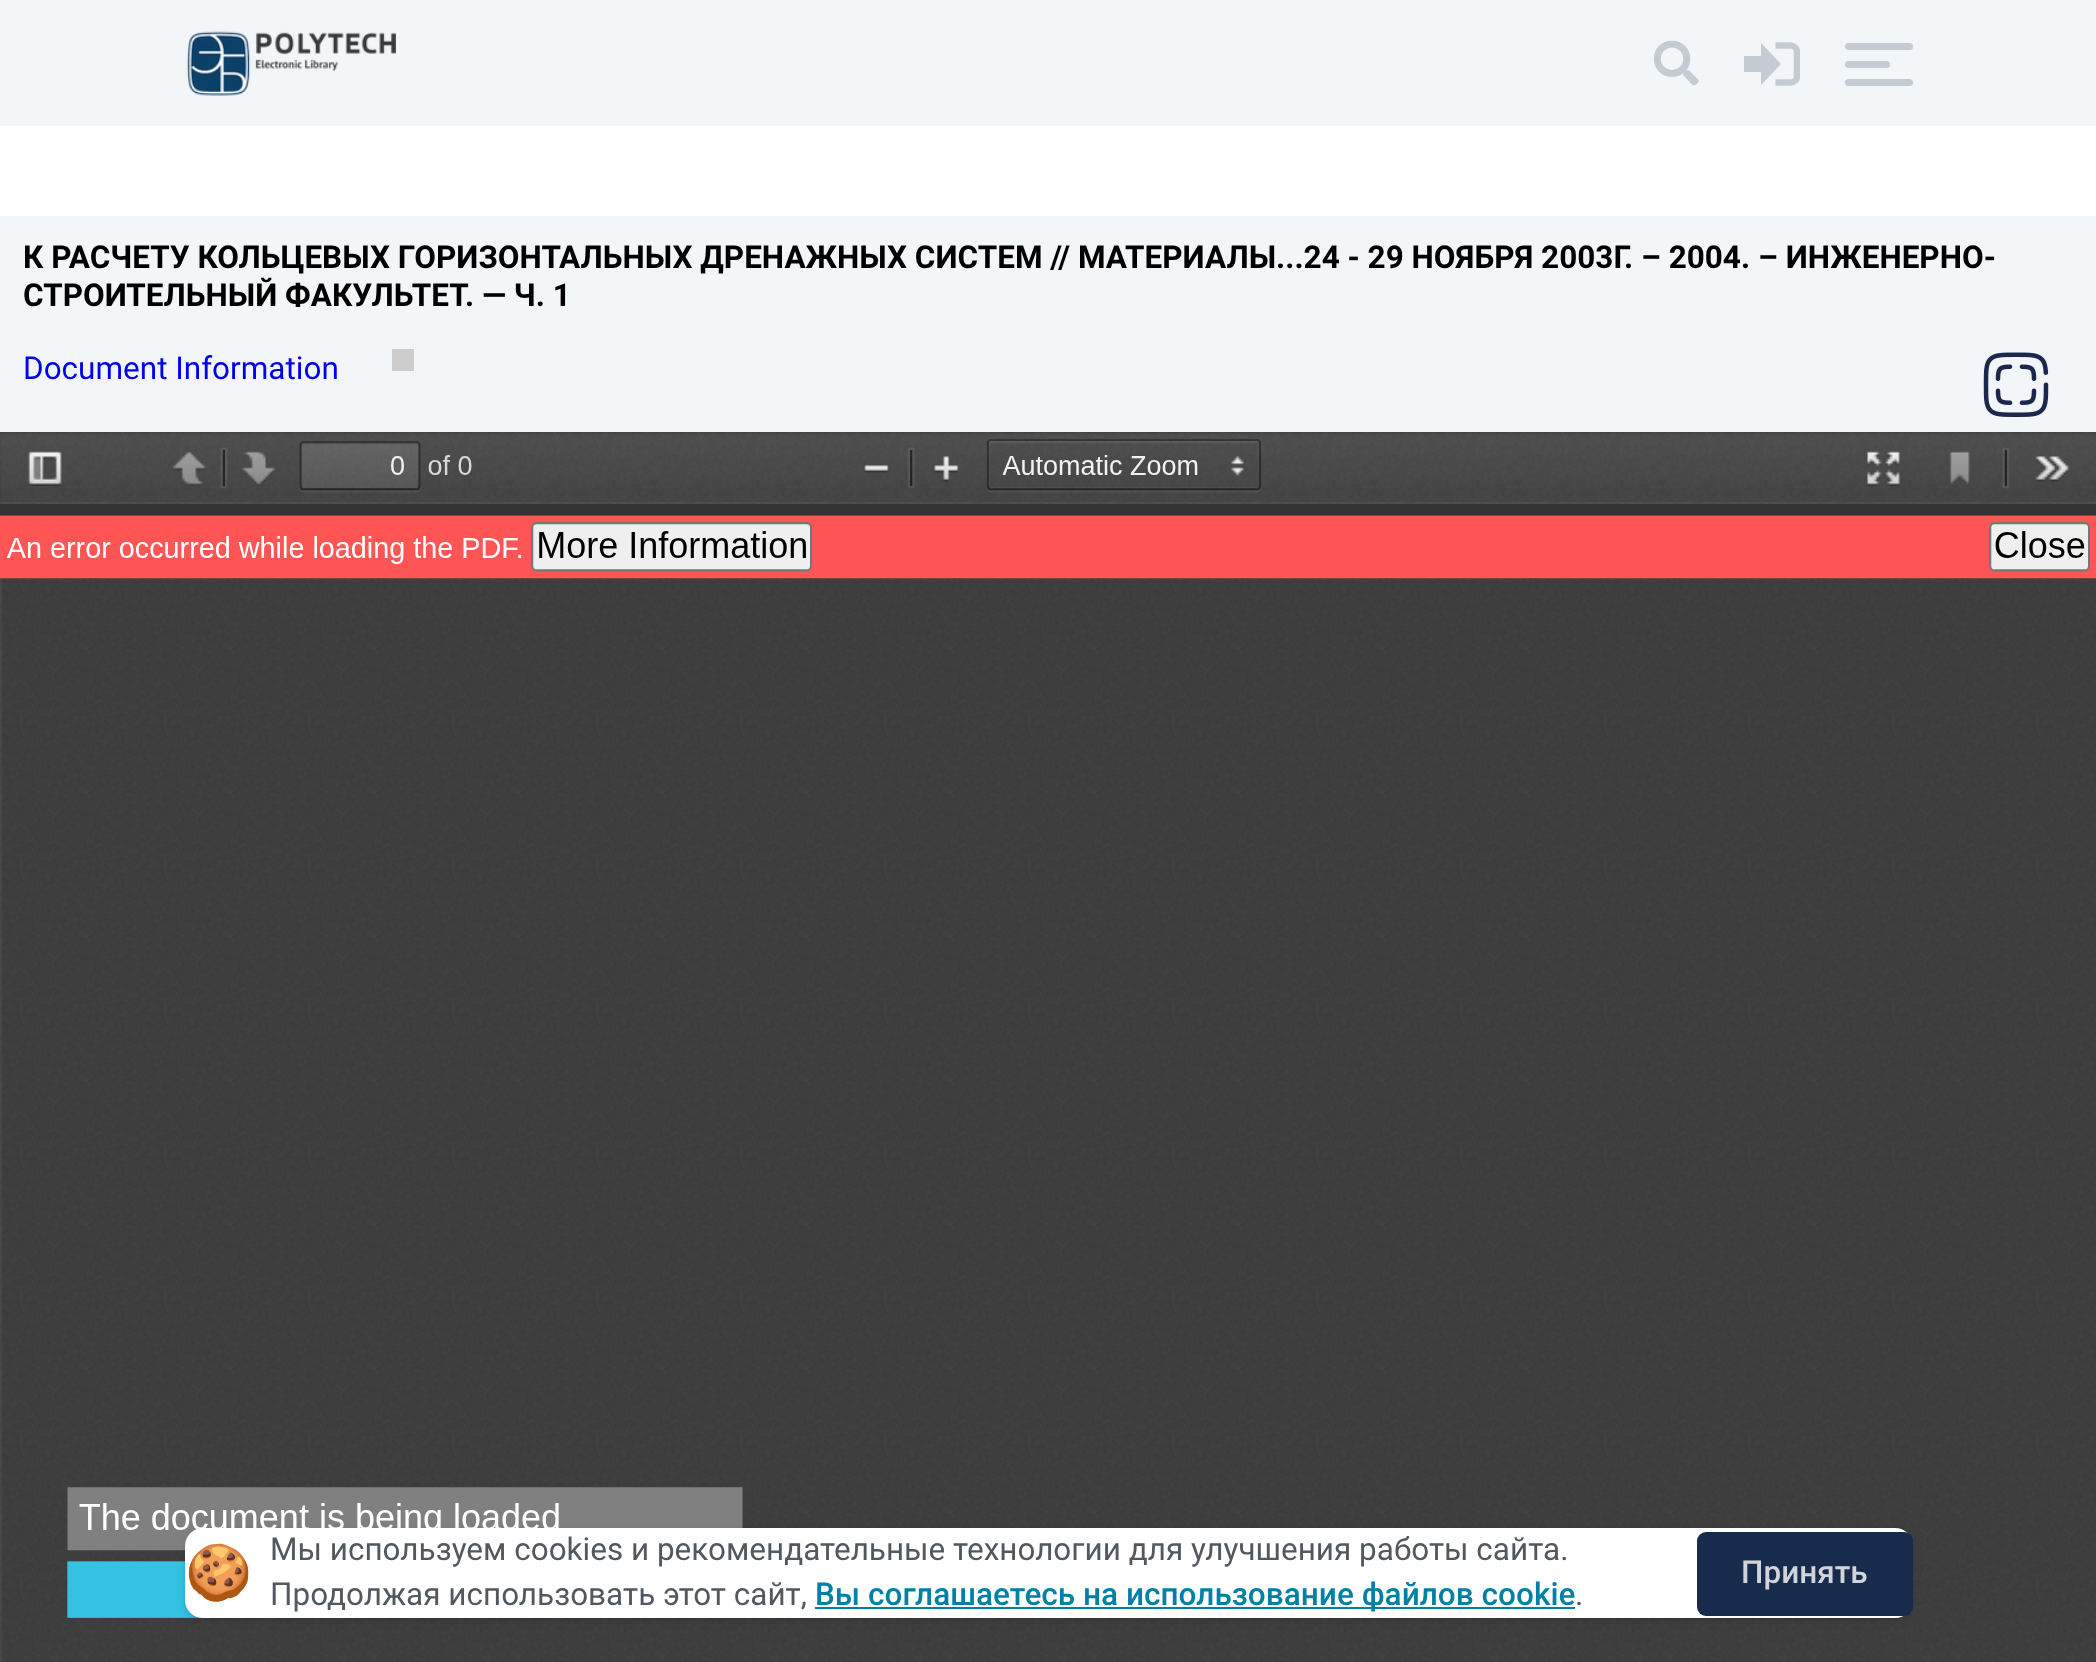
<!DOCTYPE html>
<meta charset="utf-8">
<style>body { margin: 0 } canvas { display: block }</style>
<canvas id="canvas" width="2096" height="1662"></canvas>
<script type="module">
  const canvas = document.getElementById("canvas");
  const ctx = canvas.getContext("2d");
  ctx.miterLimit = 4;
  ctx.fontKerning = "normal";
  async function loadImage(src) {
    const img = new Image();
    img.src = src;
    await img.decode();
    return img;
  }

  ctx.fillStyle = "#f3f6f8";
  ctx.fillRect(0, 0, 2096, 1662);
  ctx.drawImage(await loadImage("img1.png"), 186, 31, 210, 65);
  ctx.drawImage(await loadImage("img2.png"), 1654, 40, 45, 46);
  ctx.save();
  ctx.beginPath();
  ctx.rect(1744, 38, 56, 52);
  ctx.clip();
  ctx.beginPath();
  ctx.moveTo(1775.5, 45.5);
  ctx.lineTo(1790.5, 45.5);
  ctx.bezierCurveTo(1794, 45.5, 1797, 48.5, 1797, 52);
  ctx.lineTo(1797, 76);
  ctx.bezierCurveTo(1797, 80, 1794, 82.5, 1790.5, 82.5);
  ctx.lineTo(1775.5, 82.5);
  ctx.strokeStyle = "#c4cbd2";
  ctx.lineWidth = 6.5;
  ctx.stroke();
  ctx.restore();
  ctx.fillStyle = "#c4cbd2";
  ctx.beginPath();
  ctx.moveTo(1781, 64);
  ctx.lineTo(1761, 85);
  ctx.lineTo(1761, 43);
  ctx.closePath();
  ctx.fill();
  ctx.fillRect(1744, 56, 17, 16);
  ctx.beginPath();
  ctx.roundRect(1845, 43, 68, 7, 3.5);
  ctx.fill();
  ctx.beginPath();
  ctx.roundRect(1845, 61, 45, 7, 3.5);
  ctx.fill();
  ctx.beginPath();
  ctx.roundRect(1845, 79, 68, 7, 3.5);
  ctx.fill();
  ctx.fillStyle = "#ffffff";
  ctx.fillRect(0, 126, 2096, 90);
  ctx.font = "bold 31.5px Roboto";
  ctx.fillStyle = "#000000";
  ctx.fillText("К РАСЧЕТУ КОЛЬЦЕВЫХ ГОРИЗОНТАЛЬНЫХ ДРЕНАЖНЫХ СИСТЕМ // МАТЕРИАЛЫ...24 - 29 НОЯБРЯ 2003Г. – 2004. – ИНЖЕНЕРНО-", 23, 268);
  ctx.fillText("СТРОИТЕЛЬНЫЙ ФАКУЛЬТЕТ. — Ч. 1", 23, 306);
  ctx.font = "31.5px Roboto";
  ctx.fillStyle = "#0000ee";
  ctx.fillText("Document Information", 23, 379);
  ctx.fillStyle = "#cccccc";
  ctx.fillRect(392, 349, 22, 22);
  ctx.drawImage(await loadImage("img3.png"), 1983, 352, 66, 65);
  ctx.drawImage(await loadImage("img4.png"), 0, 432, 2096, 1230);
  ctx.fillStyle = "rgba(0, 0, 0, 0.07)";
  ctx.filter = "blur(2px)";
  ctx.beginPath();
  ctx.roundRect(185, 1530, 1728, 90, 18);
  ctx.fill();
  ctx.filter = "none";
  ctx.fillStyle = "rgba(10, 37, 64, 0.09)";
  ctx.filter = "blur(5px)";
  ctx.beginPath();
  ctx.roundRect(185, 1532, 1728, 90, 18);
  ctx.fill();
  ctx.filter = "none";
  ctx.fillStyle = "#ffffff";
  ctx.beginPath();
  ctx.roundRect(185, 1528, 1728, 90, 18);
  ctx.fill();
  ctx.font = "54px Noto Color Emoji";
  ctx.fillStyle = "#52585f";
  ctx.fillText("🍪", 185, 1591);
  ctx.font = "31.5px Roboto";
  ctx.fillText("Мы используем cookies и рекомендательные технологии для улучшения работы сайта.", 270, 1560);
  ctx.fillText("Продолжая использовать этот сайт,", 270, 1605);
  ctx.fillStyle = "#0080a7";
  ctx.fillRect(815, 1607, 760, 2);
  ctx.font = "500 31.5px Roboto";
  ctx.fillText("Вы соглашаетесь на использование файлов cookie", 815, 1605);
  ctx.font = "31.5px Roboto";
  ctx.fillStyle = "#52585f";
  ctx.fillText(".", 1575, 1605);
  ctx.fillStyle = "#172b4d";
  ctx.beginPath();
  ctx.roundRect(1697, 1532, 216, 84, 9);
  ctx.fill();
  ctx.font = "500 31.5px Roboto";
  ctx.fillStyle = "#d1d5db";
  ctx.fillText("Принять", 1741, 1583);
</script>
